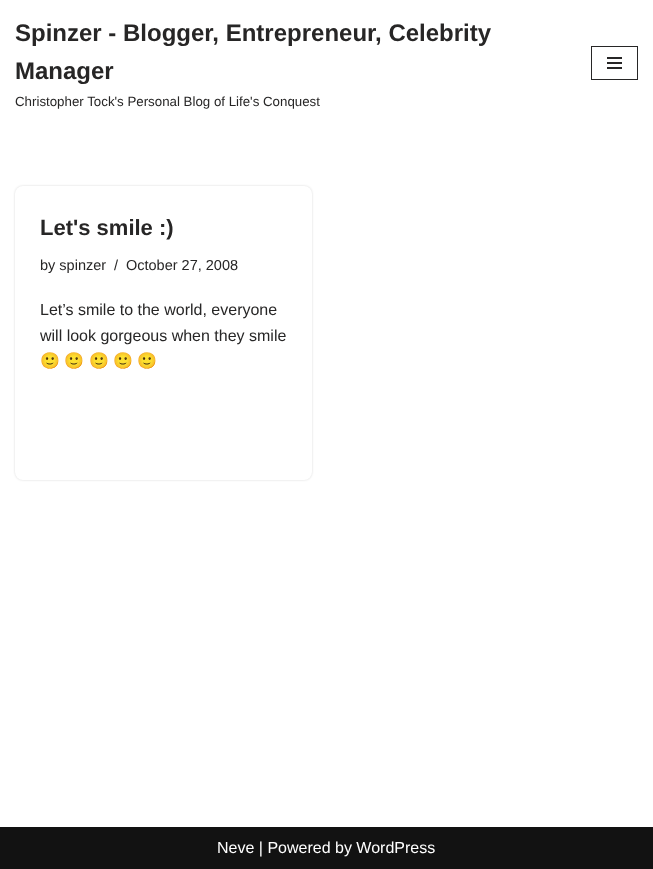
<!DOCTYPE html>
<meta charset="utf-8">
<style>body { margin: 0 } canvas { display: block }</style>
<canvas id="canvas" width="653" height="869"></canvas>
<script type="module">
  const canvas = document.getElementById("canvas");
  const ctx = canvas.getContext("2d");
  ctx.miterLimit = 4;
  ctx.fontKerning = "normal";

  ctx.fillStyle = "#ffffff";
  ctx.fillRect(0, 0, 653, 869);
  ctx.font = "bold 24px Liberation Sans";
  ctx.fillStyle = "#272626";
  ctx.fillText("Spinzer - Blogger, Entrepreneur, Celebrity", 15, 41);
  ctx.fillText("Manager", 15, 79);
  ctx.font = "13.3px Liberation Sans";
  ctx.fillText("Christopher Tock's Personal Blog of Life's Conquest", 15, 106);
  ctx.strokeStyle = "#272626";
  ctx.strokeRect(591.5, 46.5, 46, 33);
  ctx.fillRect(607, 57, 15, 2);
  ctx.fillRect(607, 62, 15, 2);
  ctx.fillRect(607, 67, 15, 2);
  ctx.fillStyle = "rgba(0, 0, 0, 0.15)";
  ctx.filter = "blur(1px)";
  ctx.beginPath();
  ctx.roundRect(15, 186, 297, 294, 8);
  ctx.fill();
  ctx.filter = "none";
  ctx.fillStyle = "#ffffff";
  ctx.beginPath();
  ctx.roundRect(15, 186, 297, 294, 8);
  ctx.fill();
  ctx.font = "bold 22px Liberation Sans";
  ctx.fillStyle = "#272626";
  ctx.fillText("Let's smile :)", 40, 235);
  ctx.font = "14.5px Liberation Sans";
  ctx.fillText("by spinzer", 40, 270);
  ctx.fillText("/", 114, 270);
  ctx.fillText("October 27, 2008", 126, 270);
  ctx.font = "16px Liberation Sans";
  ctx.fillText("Let’s smile to the world, everyone", 40, 315);
  ctx.fillText("will look gorgeous when they smile", 40, 341);
  ctx.font = "16px Noto Color Emoji";
  ctx.fillText("🙂", 40, 366);
  ctx.fillText("🙂", 64, 366);
  ctx.fillText("🙂", 89, 366);
  ctx.fillText("🙂", 113, 366);
  ctx.fillText("🙂", 137, 366);
  ctx.fillStyle = "#121212";
  ctx.fillRect(0, 827, 653, 42);
  ctx.font = "16px Liberation Sans";
  ctx.fillStyle = "#ffffff";
  ctx.fillText("Neve | Powered by WordPress", 217, 853);
</script>
